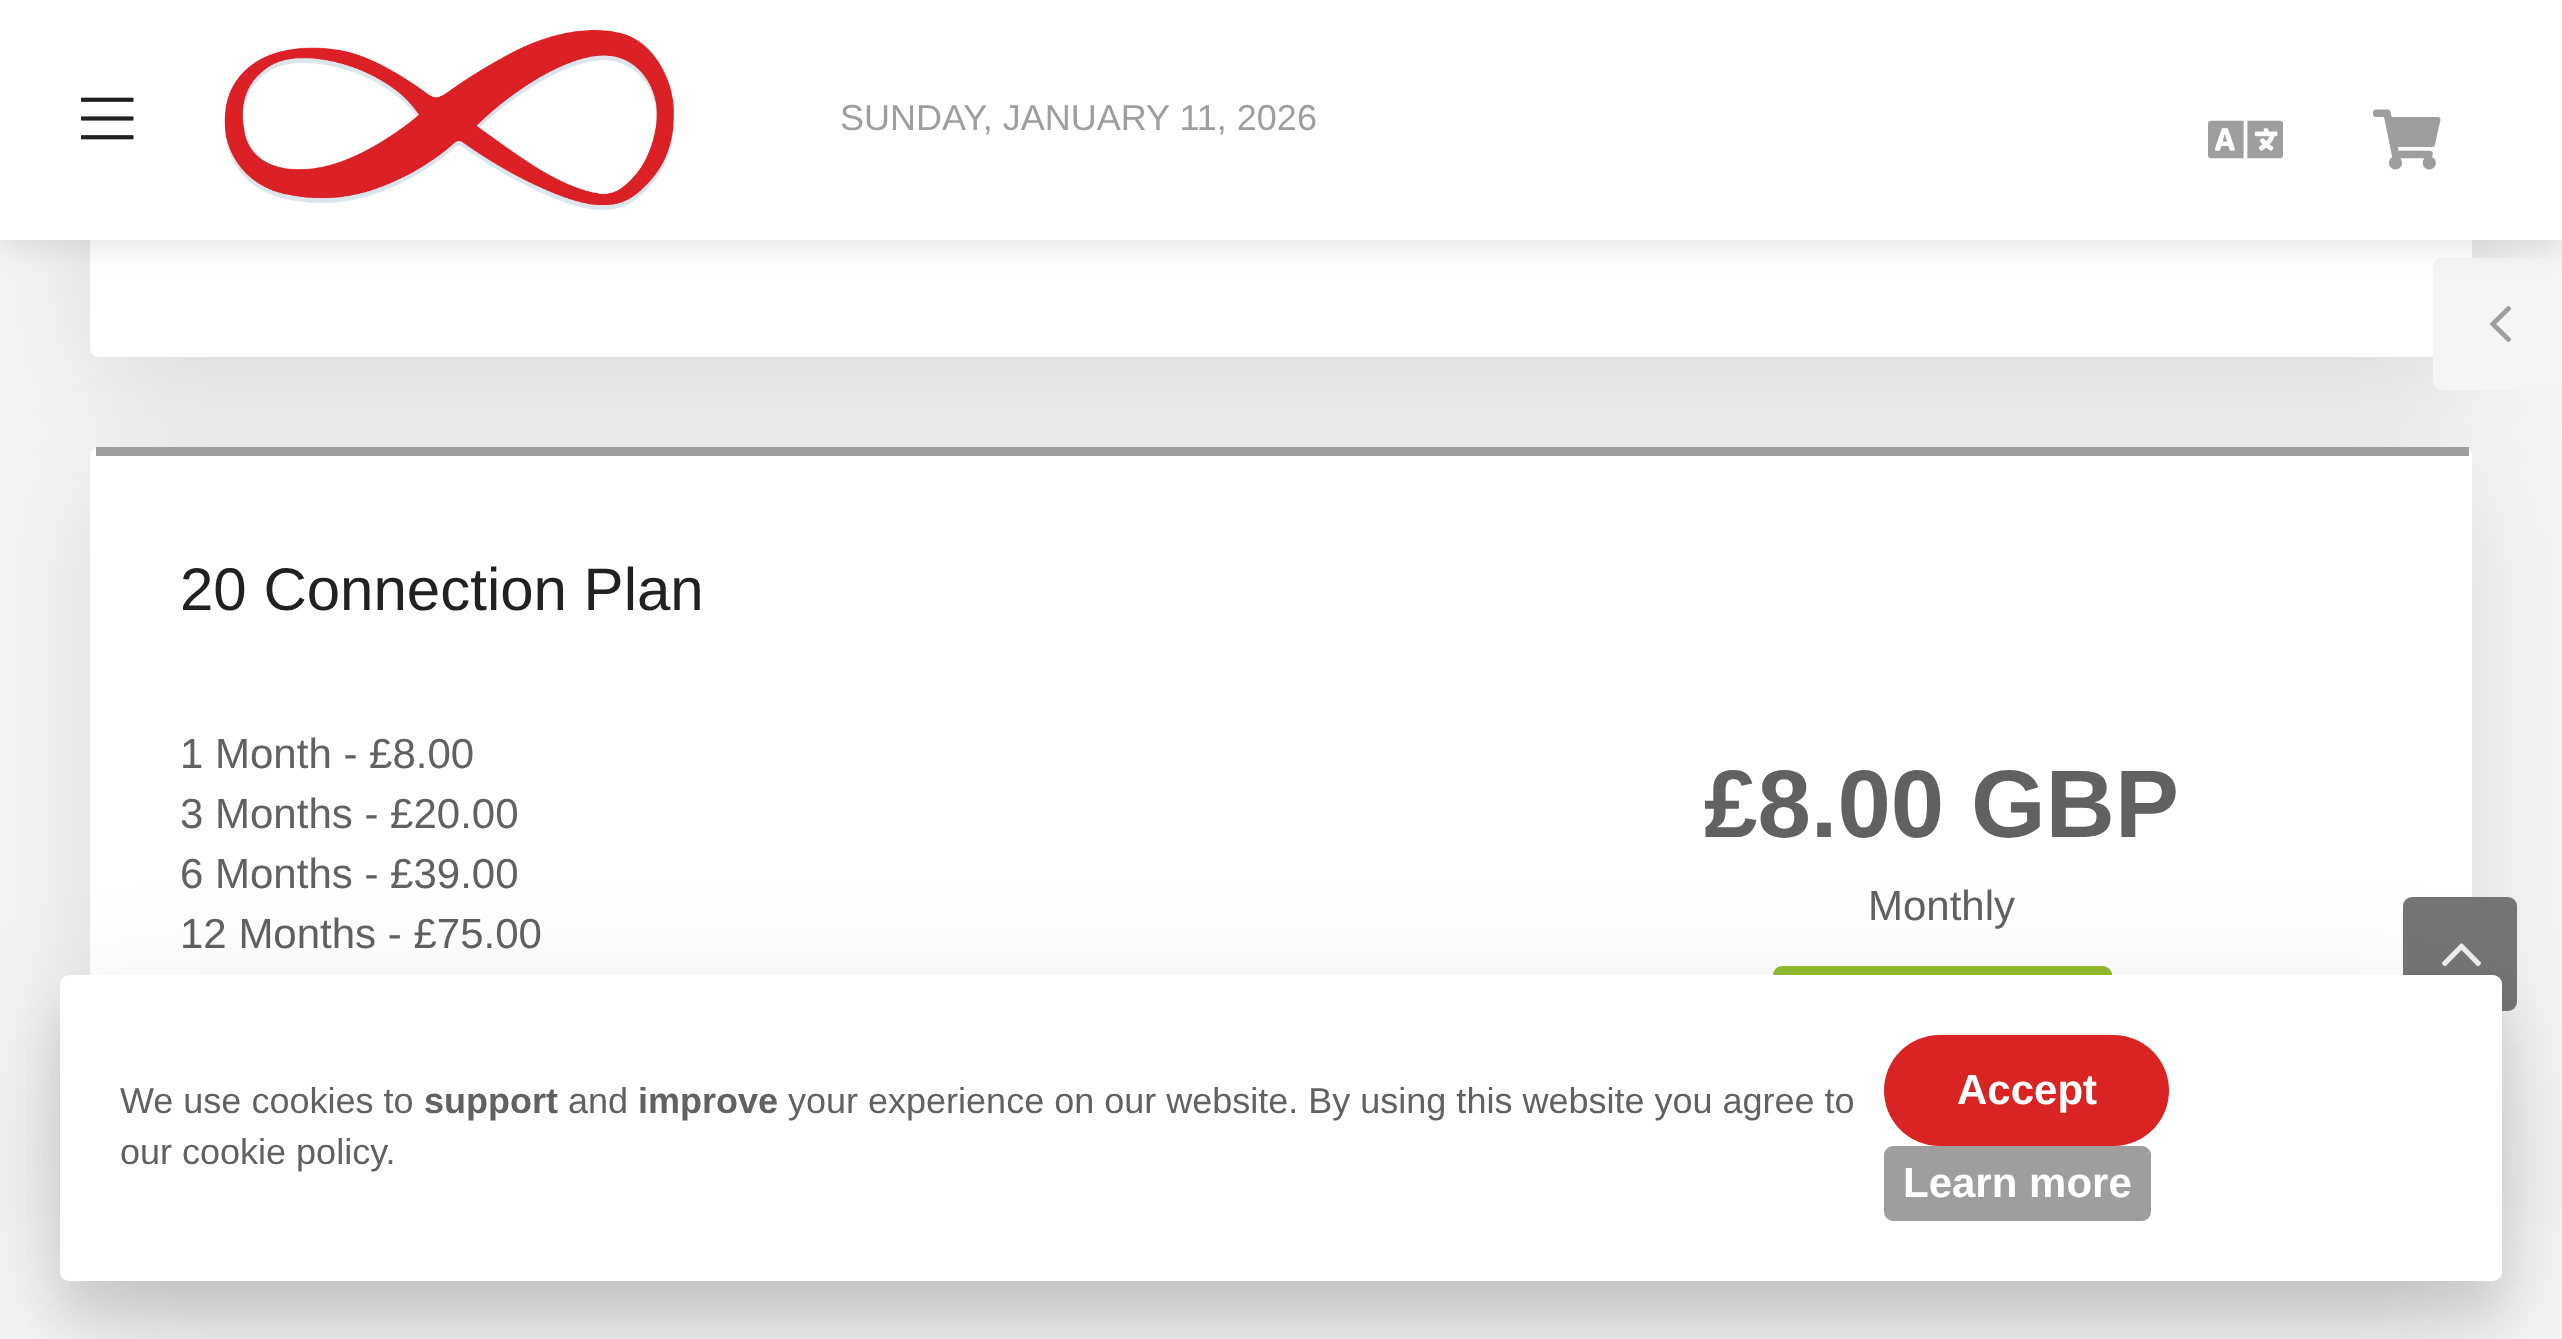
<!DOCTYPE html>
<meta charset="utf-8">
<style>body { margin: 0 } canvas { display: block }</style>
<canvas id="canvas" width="2562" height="1339"></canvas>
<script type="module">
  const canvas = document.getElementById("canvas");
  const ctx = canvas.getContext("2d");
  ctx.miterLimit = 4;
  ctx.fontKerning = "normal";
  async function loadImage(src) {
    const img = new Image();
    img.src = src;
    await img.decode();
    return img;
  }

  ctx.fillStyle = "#f5f5f5";
  ctx.fillRect(0, 0, 2562, 1339);
  ctx.fillStyle = "rgba(0, 0, 0, 0.1)";
  ctx.filter = "blur(60px)";
  ctx.beginPath();
  ctx.roundRect(90, -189, 2382, 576, 9);
  ctx.fill();
  ctx.filter = "none";
  ctx.fillStyle = "#ffffff";
  ctx.beginPath();
  ctx.roundRect(90, -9, 2382, 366, 9);
  ctx.fill();
  ctx.fillStyle = "rgba(0, 0, 0, 0.1)";
  ctx.filter = "blur(60px)";
  ctx.beginPath();
  ctx.roundRect(90, 477, 2382, 768, 9);
  ctx.fill();
  ctx.filter = "none";
  ctx.fillStyle = "#f5f5f5";
  ctx.beginPath();
  ctx.moveTo(2442, 258);
  ctx.lineTo(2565, 258);
  ctx.lineTo(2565, 390);
  ctx.lineTo(2442, 390);
  ctx.bezierCurveTo(2437, 390, 2433, 386, 2433, 381);
  ctx.lineTo(2433, 267);
  ctx.bezierCurveTo(2433, 262, 2437, 258, 2442, 258);
  ctx.closePath();
  ctx.fill();
  ctx.fillStyle = "rgba(0, 0, 0, 0.1)";
  ctx.filter = "blur(15px)";
  ctx.beginPath();
  ctx.rect(0, 6, 2562, 240);
  ctx.fill();
  ctx.filter = "none";
  ctx.fillStyle = "#ffffff";
  ctx.fillRect(0, 0, 2562, 240);
  ctx.drawImage(await loadImage("img1.png"), 81, 97, 53, 43);
  ctx.drawImage(await loadImage("img2.png"), 224, 30, 450, 180);
  ctx.font = "36px Liberation Sans";
  ctx.fillStyle = "#9e9e9e";
  ctx.fillText("SUNDAY, JANUARY 11, 2026", 840, 130);
  ctx.drawImage(await loadImage("img3.png"), 2208, 120, 75, 39);
  ctx.drawImage(await loadImage("img4.png"), 2373, 109, 68, 61);
  ctx.drawImage(await loadImage("img5.png"), 2490, 306, 22, 36);
  ctx.fillStyle = "#ffffff";
  ctx.beginPath();
  ctx.roundRect(90, 447, 2382, 768, 9);
  ctx.fill();
  ctx.fillStyle = "#9e9e9e";
  ctx.fillRect(96, 447, 2373, 9);
  ctx.font = "60px Liberation Sans";
  ctx.fillStyle = "#212121";
  ctx.fillText("20 Connection Plan", 180, 610);
  ctx.font = "42px Liberation Sans";
  ctx.fillStyle = "#616161";
  ctx.fillText("1 Month - £8.00", 180, 768);
  ctx.fillText("3 Months - £20.00", 180, 828);
  ctx.fillText("6 Months - £39.00", 180, 888);
  ctx.fillText("12 Months - £75.00", 180, 948);
  ctx.font = "bold 96px Liberation Sans";
  ctx.fillText("£8.00 GBP", 1704, 837);
  ctx.font = "42px Liberation Sans";
  ctx.fillText("Monthly", 1868, 920);
  ctx.fillStyle = "#94bd31";
  ctx.beginPath();
  ctx.roundRect(1774.5, 967.5, 336, 96, 7.5);
  ctx.fill();
  ctx.strokeStyle = "#94bd31";
  ctx.lineWidth = 3;
  ctx.stroke();
  ctx.fillStyle = "#757575";
  ctx.beginPath();
  ctx.roundRect(2403, 897, 114, 114, 9);
  ctx.fill();
  ctx.drawImage(await loadImage("img6.png"), 2442, 943, 39, 24);
  ctx.fillStyle = "rgba(0, 0, 0, 0.1)";
  ctx.filter = "blur(22.5px)";
  ctx.beginPath();
  ctx.roundRect(60, 1011, 2442, 306, 9);
  ctx.fill();
  ctx.filter = "none";
  ctx.filter = "blur(75px)";
  ctx.beginPath();
  ctx.roundRect(60, 1026, 2442, 306, 9);
  ctx.fill();
  ctx.filter = "none";
  ctx.fillStyle = "#ffffff";
  ctx.beginPath();
  ctx.roundRect(60, 975, 2442, 306, 9);
  ctx.fill();
  ctx.font = "36px Liberation Sans";
  ctx.fillStyle = "#616161";
  ctx.fillText("We use cookies to", 120, 1113);
  ctx.font = "bold 36px Liberation Sans";
  ctx.fillText("support", 424, 1113);
  ctx.font = "36px Liberation Sans";
  ctx.fillText("and", 568, 1113);
  ctx.font = "bold 36px Liberation Sans";
  ctx.fillText("improve", 638, 1113);
  ctx.font = "36px Liberation Sans";
  ctx.fillText("your experience on our website. By using this website you agree to", 788, 1113);
  ctx.fillText("our cookie policy.", 120, 1164);
  ctx.fillStyle = "#da2323";
  ctx.beginPath();
  ctx.roundRect(1884, 1035, 285, 111, 55.5);
  ctx.fill();
  ctx.font = "bold 42px Liberation Sans";
  ctx.fillStyle = "#ffffff";
  ctx.fillText("Accept", 1957, 1104);
  ctx.fillStyle = "#9e9e9e";
  ctx.beginPath();
  ctx.roundRect(1885.5, 1147.5, 264, 72, 7.5);
  ctx.fill();
  ctx.strokeStyle = "#9e9e9e";
  ctx.stroke();
  ctx.fillStyle = "#ffffff";
  ctx.fillText("Learn more", 1903, 1197);
</script>
